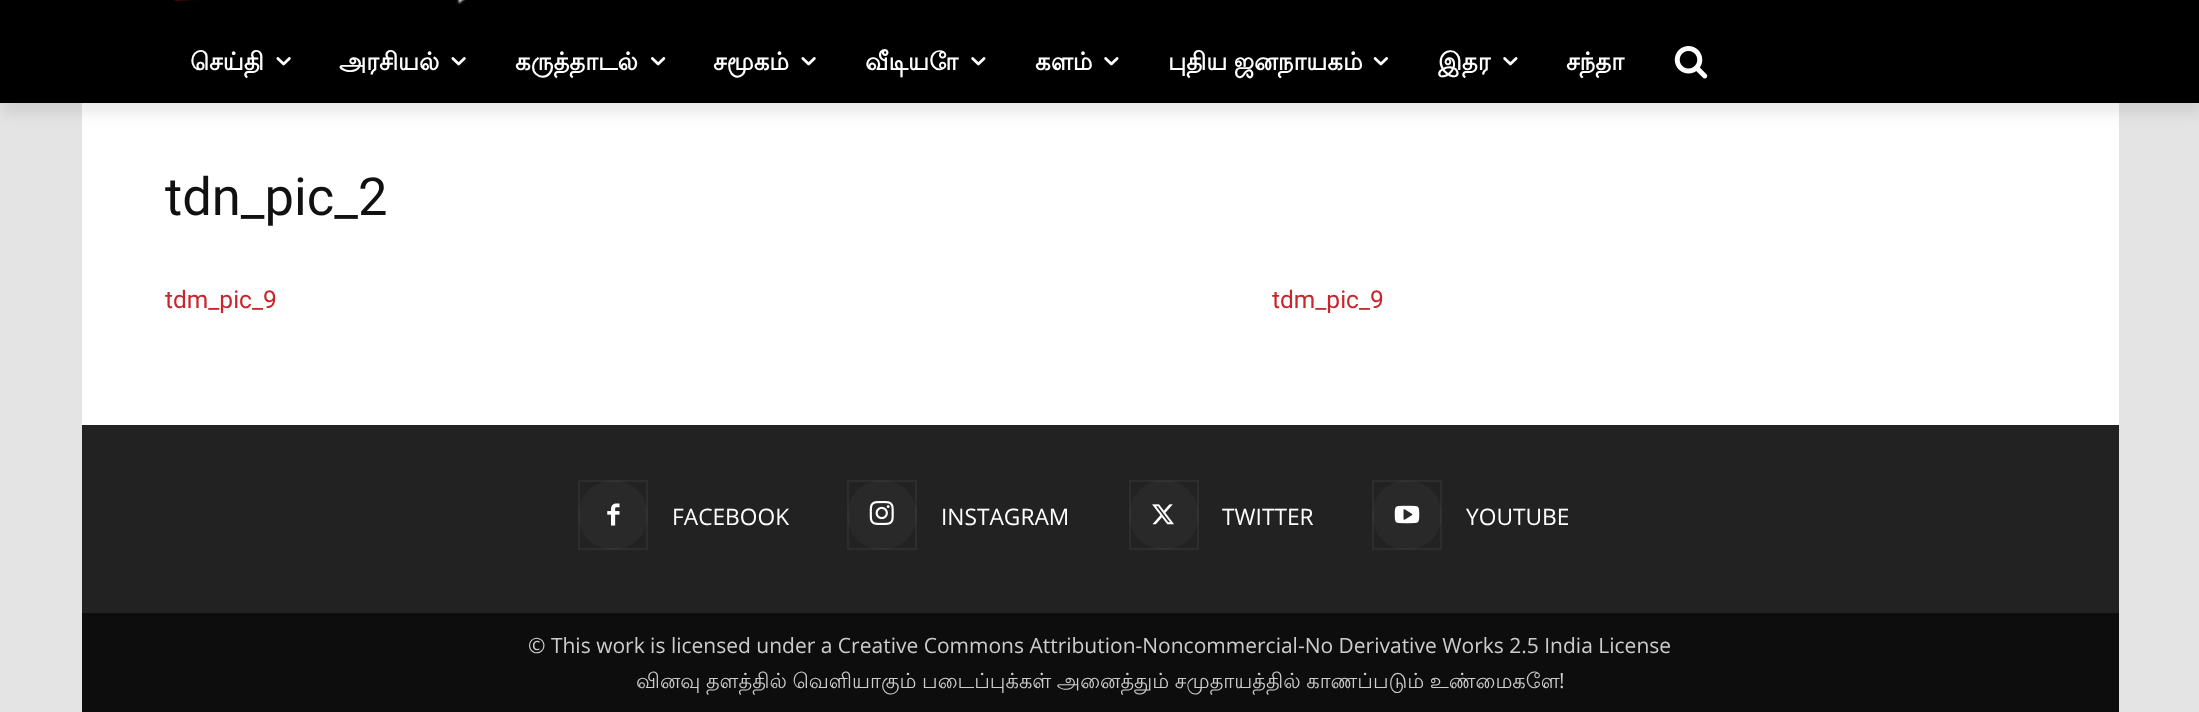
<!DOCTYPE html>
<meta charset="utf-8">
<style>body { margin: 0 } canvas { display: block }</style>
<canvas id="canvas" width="2199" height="712"></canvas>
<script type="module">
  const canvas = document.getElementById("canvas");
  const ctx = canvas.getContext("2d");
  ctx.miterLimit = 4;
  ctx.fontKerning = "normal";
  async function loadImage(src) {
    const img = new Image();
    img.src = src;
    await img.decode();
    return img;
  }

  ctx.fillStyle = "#e4e4e4";
  ctx.fillRect(0, 0, 2199, 712);
  ctx.fillStyle = "#000000";
  ctx.fillRect(0, 0, 2199, 103);
  ctx.drawImage(await loadImage("img1.png"), 173, 0, 293, 4);
  ctx.fillStyle = "#ffffff";
  ctx.fillRect(82, 103, 2037, 322);
  ctx.save();
  ctx.beginPath();
  ctx.moveTo(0, 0);
  ctx.lineTo(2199, 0);
  ctx.lineTo(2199, 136);
  ctx.lineTo(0, 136);
  ctx.closePath();
  ctx.moveTo(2, -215);
  ctx.lineTo(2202, -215);
  ctx.lineTo(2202, 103);
  ctx.lineTo(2, 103);
  ctx.closePath();
  ctx.clip("evenodd");
  ctx.fillStyle = "rgba(0, 0, 0, 0.08)";
  ctx.filter = "blur(7px)";
  ctx.beginPath();
  ctx.rect(2, -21, 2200, 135);
  ctx.fill();
  ctx.filter = "none";
  ctx.restore();
  ctx.font = "bold 24.5px Lohit Tamil";
  ctx.fillText("செய்தி", 190, 70);
  ctx.drawImage(await loadImage("img2.png"), 276, 57, 15, 9);
  ctx.fillText("அரசியல்", 339, 70);
  ctx.drawImage(await loadImage("img2.png"), 451, 57, 15, 9);
  ctx.fillText("கருத்தாடல்", 515, 70);
  ctx.drawImage(await loadImage("img3.png"), 651, 57, 15, 9);
  ctx.fillText("சமூகம்", 713, 70);
  ctx.drawImage(await loadImage("img2.png"), 801, 57, 15, 9);
  ctx.fillText("வீடியோ", 865, 70);
  ctx.drawImage(await loadImage("img4.png"), 971, 57, 15, 9);
  ctx.fillText("களம்", 1035, 70);
  ctx.drawImage(await loadImage("img4.png"), 1104, 57, 15, 9);
  ctx.wordSpacing = "-1px";
  ctx.fillText("புதிய ஜனநாயகம்", 1168, 70);
  ctx.drawImage(await loadImage("img5.png"), 1373, 57, 15, 9);
  ctx.wordSpacing = "0px";
  ctx.fillText("இதர", 1438, 70);
  ctx.drawImage(await loadImage("img4.png"), 1503, 57, 15, 9);
  ctx.fillText("சந்தா", 1566, 70);
  ctx.drawImage(await loadImage("img6.png"), 1674, 46, 34, 33);
  ctx.font = "52.5px Roboto";
  ctx.fillStyle = "#111111";
  ctx.fillText("tdn_pic_2", 165, 215);
  ctx.font = "24.5px Roboto";
  ctx.fillStyle = "#c9252c";
  ctx.fillText("tdm_pic_9", 165, 308);
  ctx.fillText("tdm_pic_9", 1272, 308);
  ctx.fillStyle = "#222222";
  ctx.fillRect(82, 425, 2037, 188);
  ctx.fillStyle = "#292929";
  ctx.beginPath();
  ctx.arc(613, 515, 35, 0, Math.PI * 2);
  ctx.fill();
  ctx.drawImage(await loadImage("img7.png"), 607, 503, 13, 23);
  ctx.strokeStyle = "rgba(255, 255, 255, 0.05)";
  ctx.lineWidth = 2;
  ctx.strokeRect(579, 481, 68, 68);
  ctx.font = "22.75px Open Sans";
  ctx.fillStyle = "#ffffff";
  ctx.fillText("FACEBOOK", 672, 525);
  ctx.fillStyle = "#292929";
  ctx.beginPath();
  ctx.arc(882, 515, 35, 0, Math.PI * 2);
  ctx.fill();
  ctx.drawImage(await loadImage("img8.png"), 869, 501, 25, 24);
  ctx.strokeRect(848, 481, 68, 68);
  ctx.fillStyle = "#ffffff";
  ctx.fillText("INSTAGRAM", 941, 525);
  ctx.fillStyle = "#292929";
  ctx.beginPath();
  ctx.arc(1164, 515, 35, 0, Math.PI * 2);
  ctx.fill();
  ctx.drawImage(await loadImage("img9.png"), 1152, 504, 22, 21);
  ctx.strokeRect(1130, 481, 68, 68);
  ctx.fillStyle = "#ffffff";
  ctx.fillText("TWITTER", 1222, 525);
  ctx.fillStyle = "#292929";
  ctx.beginPath();
  ctx.arc(1407, 515, 35, 0, Math.PI * 2);
  ctx.fill();
  ctx.drawImage(await loadImage("img10.png"), 1394, 505, 26, 19);
  ctx.strokeRect(1373, 481, 68, 68);
  ctx.fillStyle = "#ffffff";
  ctx.fillText("YOUTUBE", 1466, 525);
  ctx.fillStyle = "#0d0d0d";
  ctx.fillRect(82, 613, 2037, 99);
  ctx.font = "21px Open Sans";
  ctx.fillStyle = "#cccccc";
  ctx.fillText("© This work is licensed under a Creative Commons Attribution-Noncommercial-No Derivative Works 2.5 India License", 528, 653);
  ctx.wordSpacing = "-0.75px";
  ctx.font = "21px Lohit Tamil";
  ctx.fillText("வினவு தளத்தில் வெளியாகும் படைப்புக்கள் அனைத்தும் சமுதாயத்தில் காணப்படும் உண்மைகளே", 636, 688);
  ctx.wordSpacing = "0px";
  ctx.font = "21px Open Sans";
  ctx.fillText("!", 1559, 688);
</script>
